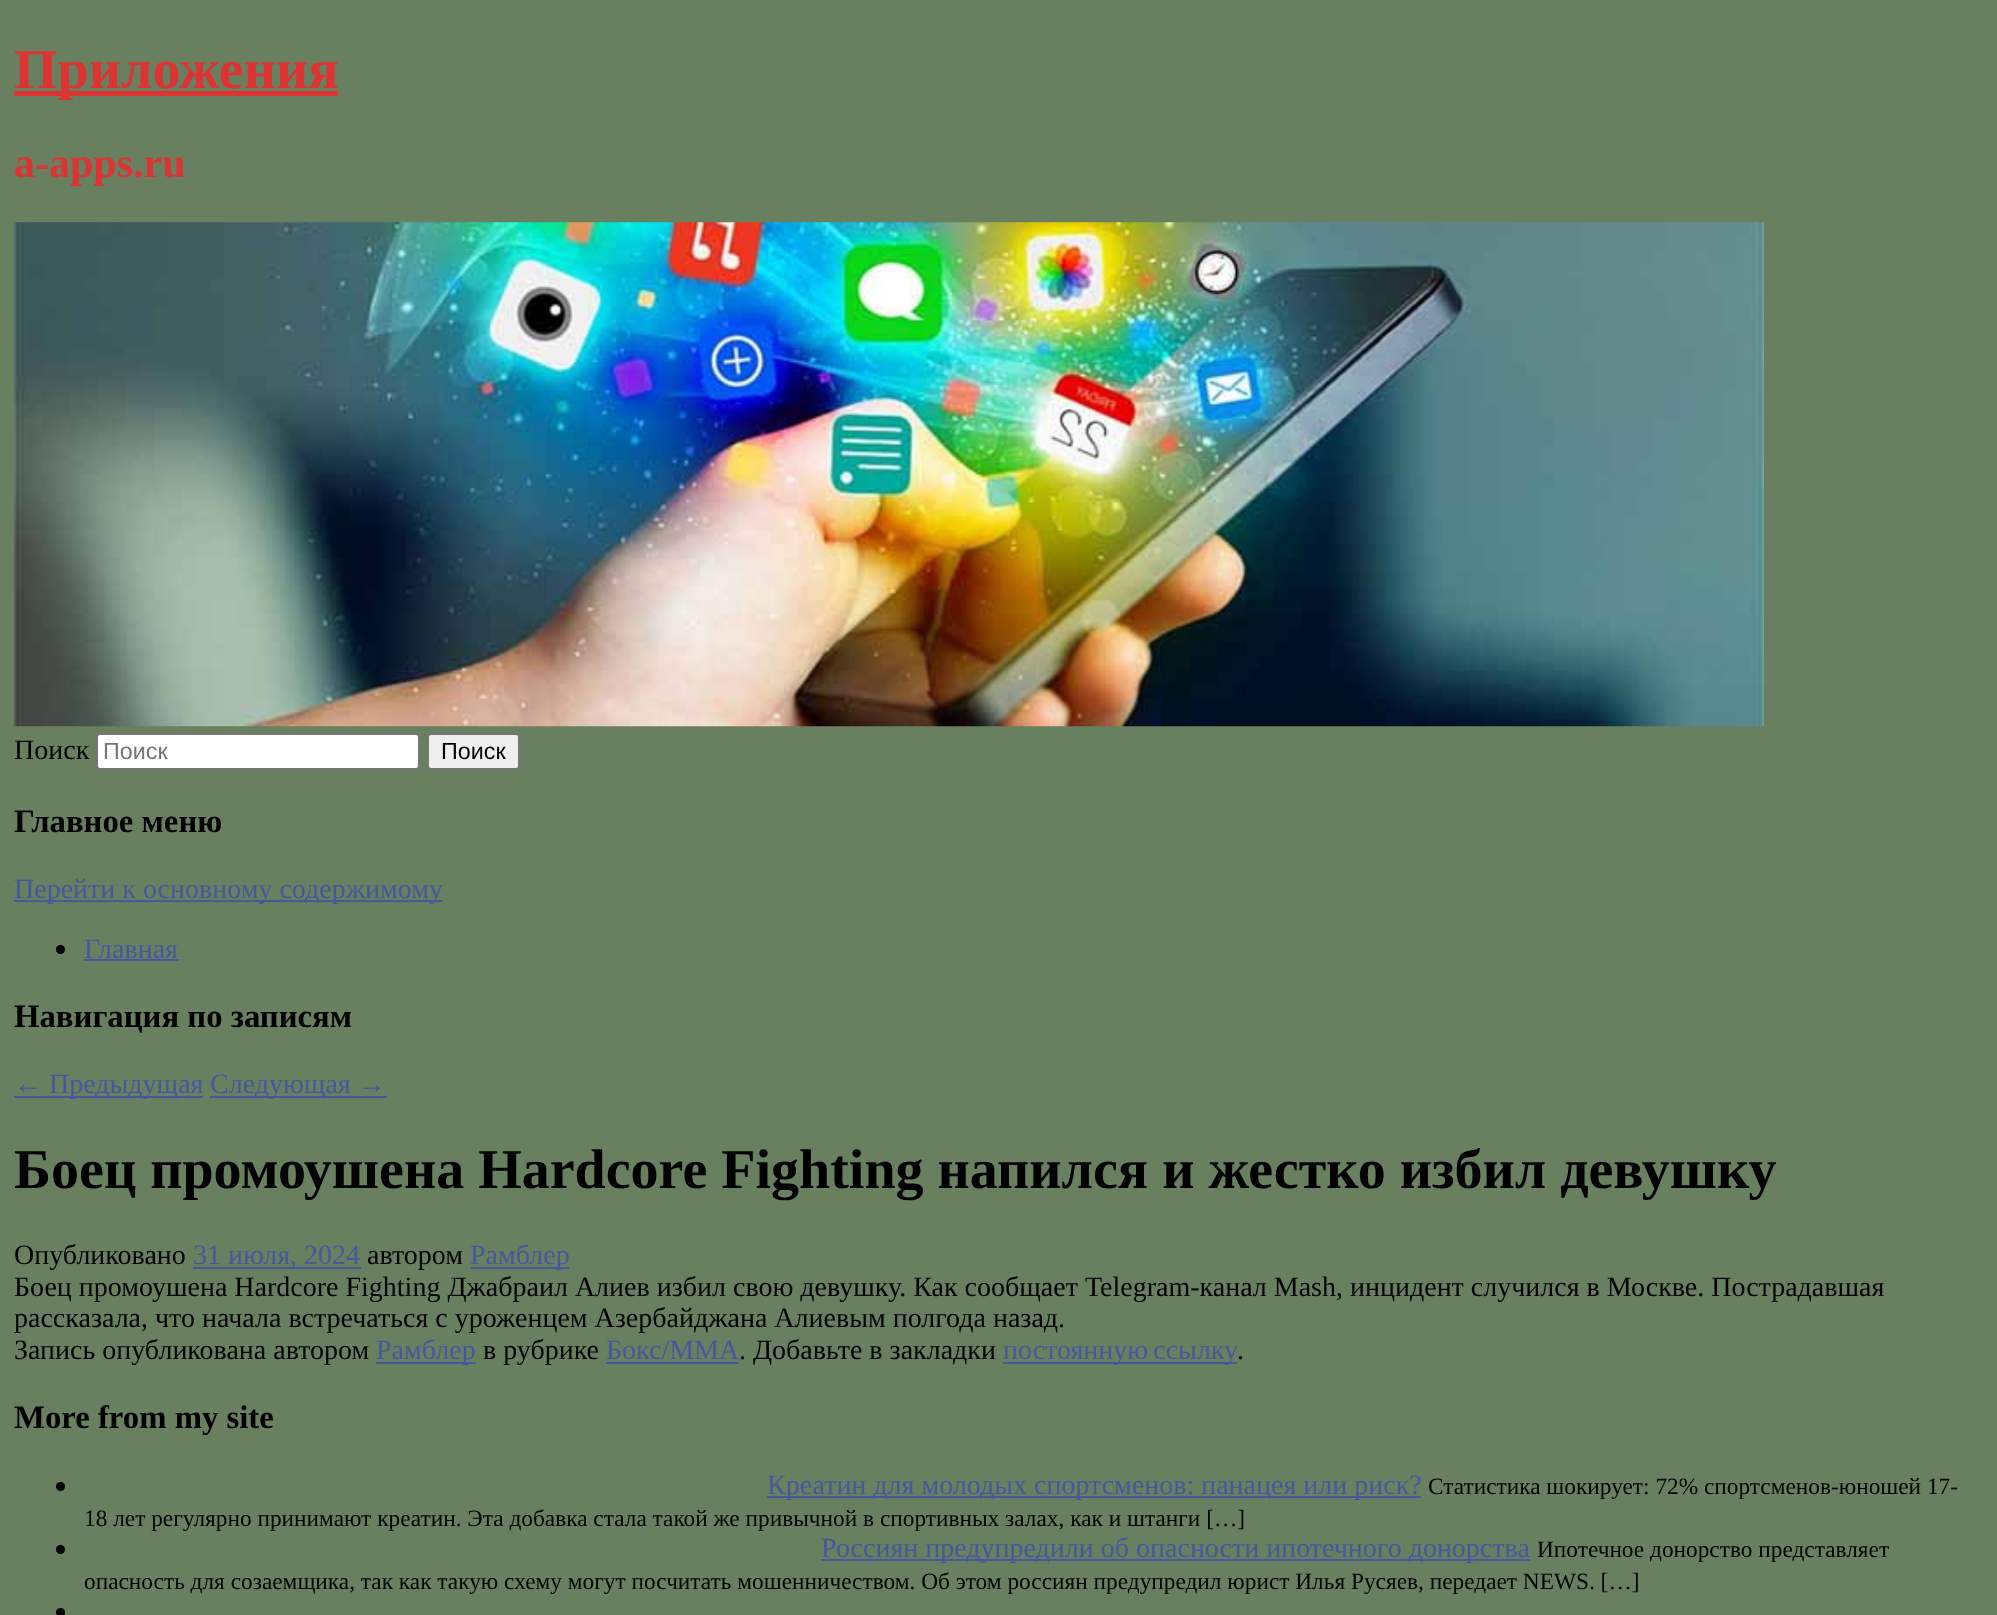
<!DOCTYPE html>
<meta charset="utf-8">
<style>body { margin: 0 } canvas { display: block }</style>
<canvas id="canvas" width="1997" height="1615"></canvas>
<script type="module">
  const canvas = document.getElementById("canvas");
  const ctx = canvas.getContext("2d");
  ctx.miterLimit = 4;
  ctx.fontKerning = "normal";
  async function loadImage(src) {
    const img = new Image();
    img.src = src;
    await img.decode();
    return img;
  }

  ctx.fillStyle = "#687f60";
  ctx.fillRect(0, 0, 1997, 1615);
  ctx.fillStyle = "#dd3333";
  ctx.fillRect(14, 91, 324, 5);
  ctx.font = "bold 56px Liberation Serif";
  ctx.fillText("Приложения", 14, 88);
  ctx.font = "bold 42px Liberation Serif";
  ctx.fillText("a-apps.ru", 14, 177);
  ctx.drawImage(await loadImage("img1.png"), 14, 222, 1750, 505);
  ctx.font = "28px Liberation Serif";
  ctx.fillStyle = "#000000";
  ctx.fillText("Поиск", 14, 759);
  ctx.fillStyle = "#ffffff";
  ctx.beginPath();
  ctx.roundRect(97, 734, 322, 35, 3);
  ctx.fill();
  ctx.strokeStyle = "#767676";
  ctx.lineWidth = 2;
  ctx.stroke();
  ctx.font = "23.33px Liberation Sans";
  ctx.fillStyle = "#757575";
  ctx.fillText("Поиск", 103, 759);
  ctx.fillStyle = "#efefef";
  ctx.beginPath();
  ctx.roundRect(428, 734, 91, 35, 3);
  ctx.fill();
  ctx.stroke();
  ctx.fillStyle = "#000000";
  ctx.fillText("Поиск", 441, 759);
  ctx.font = "bold 32.75px Liberation Serif";
  ctx.fillText("Главное меню", 14, 832);
  ctx.fillStyle = "#45589e";
  ctx.fillRect(14, 900, 429, 2);
  ctx.font = "28px Liberation Serif";
  ctx.fillText("Перейти к основному содержимому", 14, 898);
  ctx.fillStyle = "#000000";
  ctx.beginPath();
  ctx.arc(60.5, 949.5, 4.5, 0, Math.PI * 2);
  ctx.fill();
  ctx.fillStyle = "#45589e";
  ctx.fillText("Главная", 84, 958);
  ctx.fillRect(84, 959, 95, 2);
  ctx.font = "bold 32.75px Liberation Serif";
  ctx.fillStyle = "#000000";
  ctx.fillText("Навигация по записям", 14, 1027);
  ctx.fillStyle = "#45589e";
  ctx.fillRect(14, 1096, 189, 2);
  ctx.font = "28px Liberation Serif";
  ctx.fillText("← Предыдущая", 14, 1093);
  ctx.fillRect(210, 1096, 177, 2);
  ctx.fillText("Следующая →", 210, 1093);
  ctx.font = "bold 56px Liberation Serif";
  ctx.fillStyle = "#000000";
  ctx.fillText("Боец промоушена Hardcore Fighting напился и жестко избил девушку", 14, 1188);
  ctx.font = "28px Liberation Serif";
  ctx.fillText("Опубликовано", 14, 1264);
  ctx.fillStyle = "#45589e";
  ctx.fillRect(193, 1267, 168, 2);
  ctx.fillText("31 июля, 2024", 193, 1264);
  ctx.fillStyle = "#000000";
  ctx.fillText("автором", 367, 1264);
  ctx.fillStyle = "#45589e";
  ctx.fillRect(471, 1267, 98, 2);
  ctx.fillText("Рамблер", 470, 1264);
  ctx.fillStyle = "#000000";
  ctx.fillText("Боец промоушена Hardcore Fighting Джабраил Алиев избил свою девушку. Как сообщает Telegram-канал Mash, инцидент случился в Москве. Пострадавшая", 14, 1296);
  ctx.fillText("рассказала, что начала встречаться с уроженцем Азербайджана Алиевым полгода назад.", 14, 1327);
  ctx.fillText("Запись опубликована автором", 14, 1359);
  ctx.fillStyle = "#45589e";
  ctx.fillRect(376, 1362, 100, 2);
  ctx.fillText("Рамблер", 376, 1359);
  ctx.fillStyle = "#000000";
  ctx.fillText("в рубрике", 483, 1359);
  ctx.fillStyle = "#45589e";
  ctx.fillText("Бокс/MMA", 606, 1359);
  ctx.fillRect(606, 1362, 133, 2);
  ctx.fillStyle = "#000000";
  ctx.fillText(". Добавьте в закладки", 739, 1359);
  ctx.fillStyle = "#45589e";
  ctx.fillRect(1003, 1362, 234, 2);
  ctx.wordSpacing = "-2px";
  ctx.fillText("постоянную ссылку", 1003, 1359);
  ctx.wordSpacing = "0px";
  ctx.fillStyle = "#000000";
  ctx.fillText(".", 1237, 1359);
  ctx.font = "bold 32.75px Liberation Serif";
  ctx.fillText("More from my site", 14, 1428);
  ctx.beginPath();
  ctx.arc(60.5, 1486.5, 4.5, 0, Math.PI * 2);
  ctx.fill();
  ctx.fillStyle = "#45589e";
  ctx.fillRect(767, 1496, 654, 2);
  ctx.font = "28px Liberation Serif";
  ctx.fillText("Креатин для молодых спортсменов: панацея или риск?", 767, 1494);
  ctx.font = "23.33px Liberation Serif";
  ctx.fillStyle = "#000000";
  ctx.fillText("Статистика шокирует: 72% спортсменов-юношей 17-", 1428, 1494);
  ctx.fillText("18 лет регулярно принимают креатин. Эта добавка стала такой же привычной в спортивных залах, как и штанги […]", 84, 1526);
  ctx.beginPath();
  ctx.arc(60.5, 1549.5, 4.5, 0, Math.PI * 2);
  ctx.fill();
  ctx.fillStyle = "#45589e";
  ctx.fillRect(821, 1559, 709, 2);
  ctx.font = "28px Liberation Serif";
  ctx.fillText("Россиян предупредили об опасности ипотечного донорства", 821, 1557);
  ctx.font = "23.33px Liberation Serif";
  ctx.fillStyle = "#000000";
  ctx.fillText("Ипотечное донорство представляет", 1537, 1557);
  ctx.fillText("опасность для созаемщика, так как такую схему могут посчитать мошенничеством. Об этом россиян предупредил юрист Илья Русяев, передает NEWS. […]", 84, 1589);
  ctx.beginPath();
  ctx.arc(60.5, 1612.5, 4.5, 0, Math.PI * 2);
  ctx.fill();
</script>
